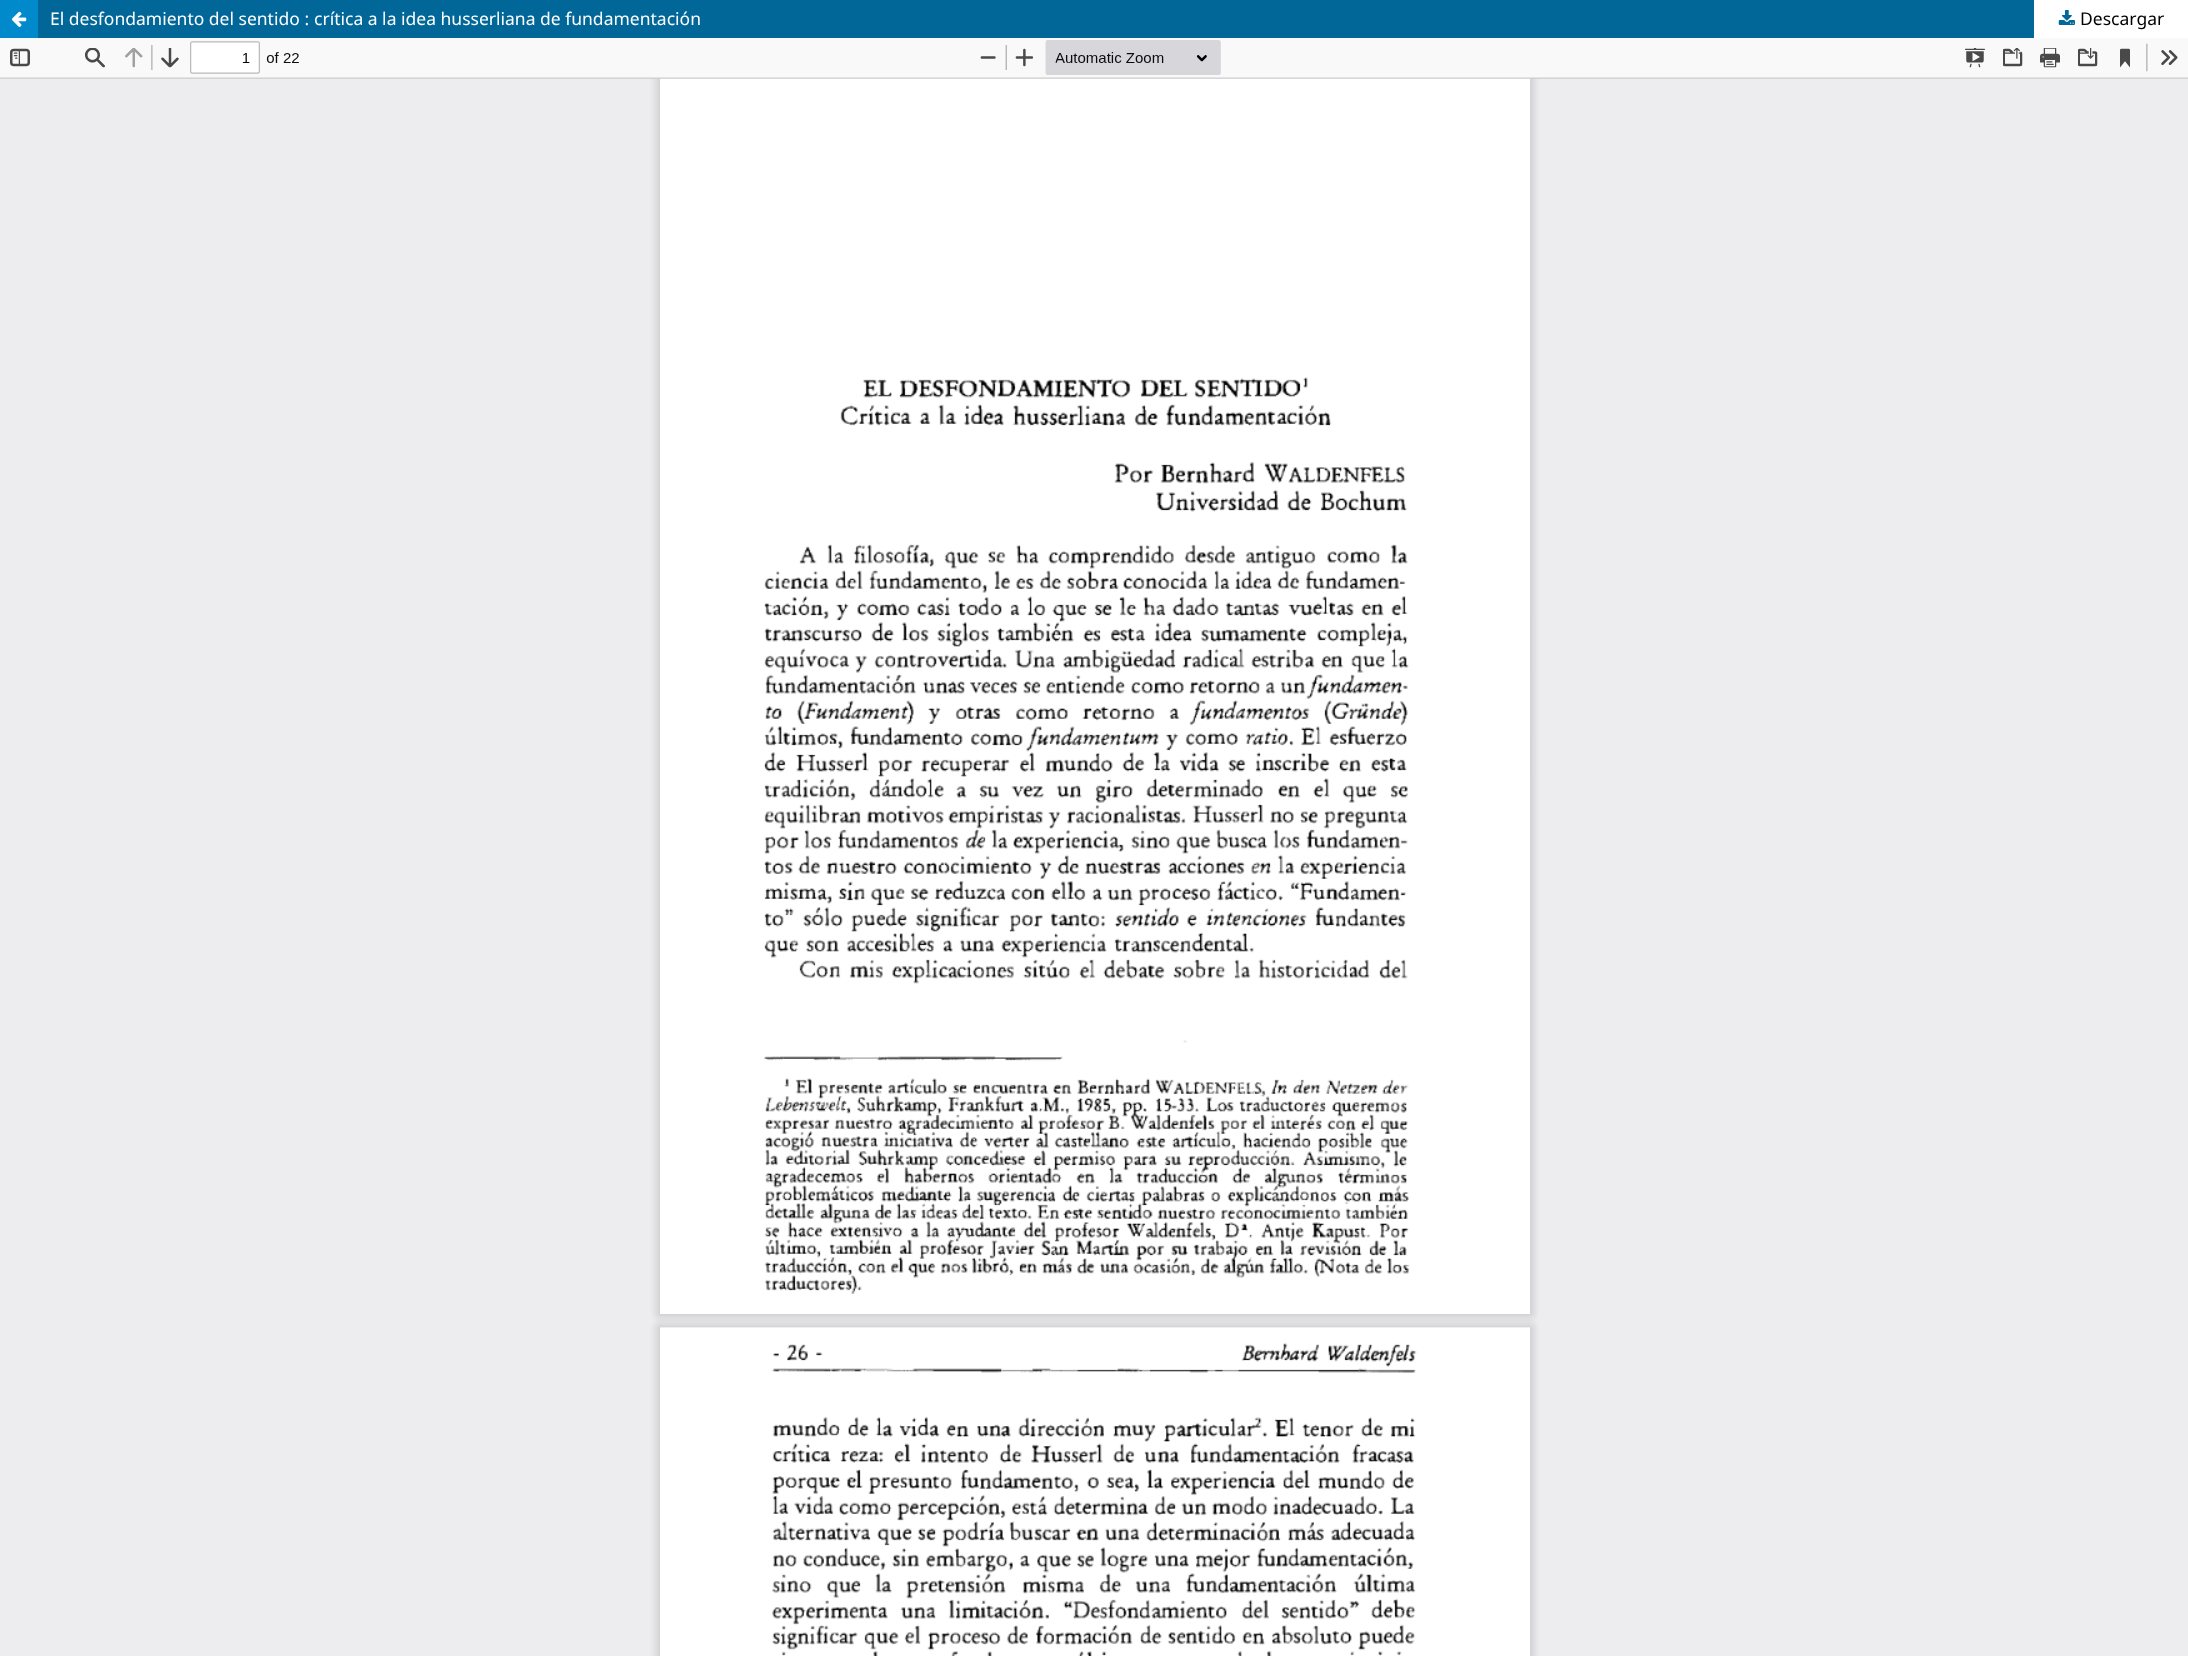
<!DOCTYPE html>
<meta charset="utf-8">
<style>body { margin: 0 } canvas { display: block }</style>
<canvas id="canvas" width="2188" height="1656"></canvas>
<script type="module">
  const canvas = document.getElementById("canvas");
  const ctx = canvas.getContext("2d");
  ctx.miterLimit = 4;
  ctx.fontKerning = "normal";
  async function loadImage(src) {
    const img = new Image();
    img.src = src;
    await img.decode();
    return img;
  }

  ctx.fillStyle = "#ffffff";
  ctx.fillRect(0, 0, 2188, 1656);
  ctx.fillStyle = "#006798";
  ctx.fillRect(38, 0, 1996, 38);
  ctx.fillStyle = "#008acb";
  ctx.fillRect(0, 0, 38, 38);
  ctx.drawImage(await loadImage("img1.png"), 11, 11, 16, 16);
  ctx.font = "17.5px Noto Sans";
  ctx.fillStyle = "#ffffff";
  ctx.fillText("El desfondamiento del sentido : crítica a la idea husserliana de fundamentación", 50, 25);
  ctx.drawImage(await loadImage("img2.png"), 2058, 10, 17, 15);
  ctx.fillStyle = "#000000";
  ctx.fillText("Descargar", 2080, 25);
  ctx.drawImage(await loadImage("img3.png"), 0, 38, 2188, 1618);
</script>
